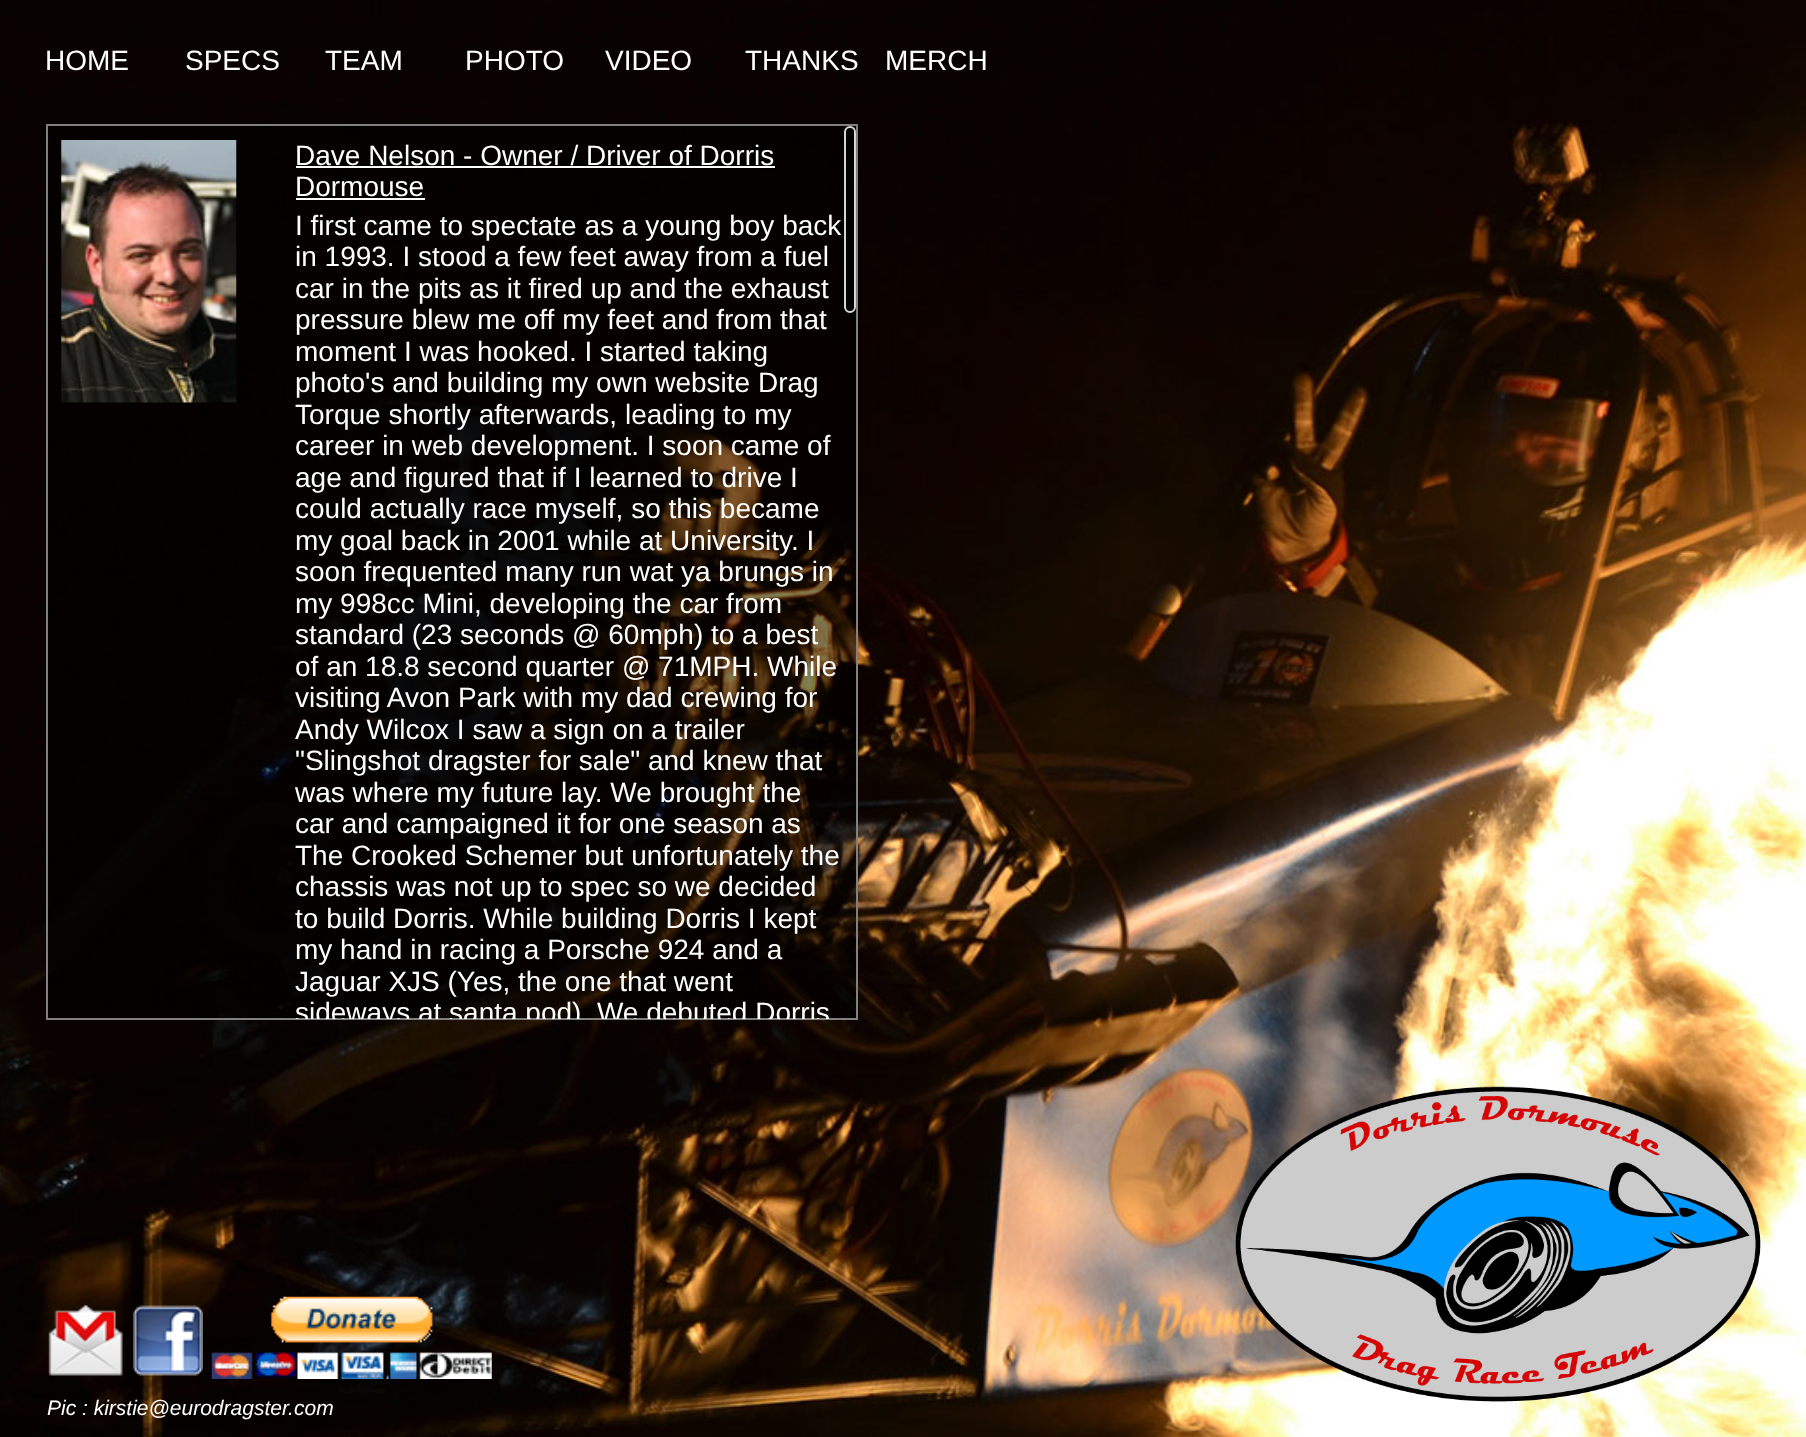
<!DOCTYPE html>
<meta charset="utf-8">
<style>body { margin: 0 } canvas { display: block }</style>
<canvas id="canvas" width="1806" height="1437"></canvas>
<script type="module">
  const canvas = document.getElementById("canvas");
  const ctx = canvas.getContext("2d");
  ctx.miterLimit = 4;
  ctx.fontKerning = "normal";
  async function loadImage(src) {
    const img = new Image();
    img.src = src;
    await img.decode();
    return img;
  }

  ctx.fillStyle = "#ffffff";
  ctx.fillRect(0, 0, 1806, 1437);
  ctx.drawImage(await loadImage("img1.png"), 0, 0, 1806, 1437);
  ctx.font = "28px Liberation Sans";
  ctx.fillText("HOME", 45, 70);
  ctx.fillText("SPECS", 185, 70);
  ctx.fillText("TEAM", 325, 70);
  ctx.fillText("PHOTO", 465, 70);
  ctx.fillText("VIDEO", 605, 70);
  ctx.fillText("THANKS", 745, 70);
  ctx.fillText("MERCH", 885, 70);
  ctx.fillStyle = "rgba(0, 0, 0, 0.5)";
  ctx.beginPath();
  ctx.rect(47, 125, 810, 894);
  ctx.fill();
  ctx.strokeStyle = "#808080";
  ctx.lineWidth = 2;
  ctx.stroke();
  ctx.drawImage(await loadImage("img2.png"), 61, 140, 176, 263);
  ctx.fillStyle = "#ffffff";
  ctx.fillText("Dave Nelson - Owner / Driver of Dorris", 295, 165);
  ctx.fillRect(296, 166, 479, 2);
  ctx.fillText("Dormouse", 295, 196);
  ctx.fillRect(296, 198, 129, 2);
  ctx.fillText("I first came to spectate as a young boy back", 295, 235);
  ctx.fillText("in 1993. I stood a few feet away from a fuel", 295, 266);
  ctx.fillText("car in the pits as it fired up and the exhaust", 295, 298);
  ctx.fillText("pressure blew me off my feet and from that", 295, 329);
  ctx.fillText("moment I was hooked. I started taking", 295, 361);
  ctx.fillText("photo's and building my own website Drag", 295, 392);
  ctx.fillText("Torque shortly afterwards, leading to my", 295, 424);
  ctx.fillText("career in web development. I soon came of", 295, 455);
  ctx.fillText("age and figured that if I learned to drive I", 295, 487);
  ctx.fillText("could actually race myself, so this became", 295, 518);
  ctx.fillText("my goal back in 2001 while at University. I", 295, 550);
  ctx.fillText("soon frequented many run wat ya brungs in", 295, 581);
  ctx.fillText("my 998cc Mini, developing the car from", 295, 613);
  ctx.fillText("standard (23 seconds @ 60mph) to a best", 295, 644);
  ctx.fillText("of an 18.8 second quarter @ 71MPH. While", 295, 676);
  ctx.fillText("visiting Avon Park with my dad crewing for", 295, 707);
  ctx.fillText("Andy Wilcox I saw a sign on a trailer", 295, 739);
  ctx.fillText("\"Slingshot dragster for sale\" and knew that", 295, 770);
  ctx.fillText("was where my future lay. We brought the", 295, 802);
  ctx.fillText("car and campaigned it for one season as", 295, 833);
  ctx.fillText("The Crooked Schemer but unfortunately the", 295, 865);
  ctx.fillText("chassis was not up to spec so we decided", 295, 896);
  ctx.fillText("to build Dorris. While building Dorris I kept", 295, 928);
  ctx.fillText("my hand in racing a Porsche 924 and a", 295, 959);
  ctx.fillText("Jaguar XJS (Yes, the one that went", 295, 991);
  ctx.save();
  ctx.beginPath();
  ctx.rect(47, 126, 809, 893);
  ctx.clip();
  ctx.fillText("sideways at santa pod). We debuted Dorris", 295, 1022);
  ctx.restore();
  ctx.fillStyle = "#010000";
  ctx.beginPath();
  ctx.roundRect(845, 127, 10, 185, 5);
  ctx.fill();
  ctx.strokeStyle = "#d5d5d5";
  ctx.stroke();
  ctx.drawImage(await loadImage("img3.png"), 1235, 1086, 526, 316);
  ctx.drawImage(await loadImage("img4.png"), 48, 1305, 75, 71);
  ctx.drawImage(await loadImage("img5.png"), 133, 1305, 70, 71);
  ctx.drawImage(await loadImage("img6.png"), 211, 1296, 281, 83);
  ctx.font = "italic 21px Liberation Sans";
  ctx.fillStyle = "#ffffff";
  ctx.fillText("Pic : kirstie@eurodragster.com", 47, 1415);
</script>
